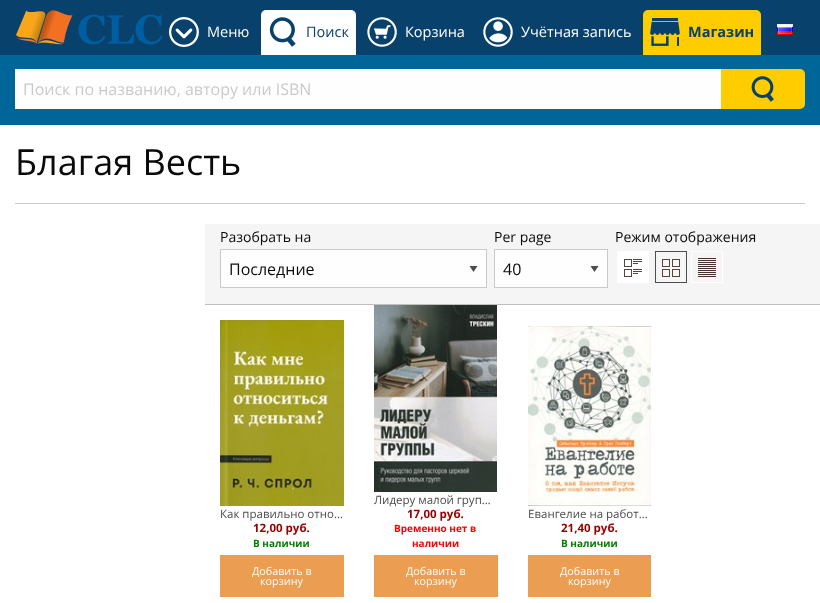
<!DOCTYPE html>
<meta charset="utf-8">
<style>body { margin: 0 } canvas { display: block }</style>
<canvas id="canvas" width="820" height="603"></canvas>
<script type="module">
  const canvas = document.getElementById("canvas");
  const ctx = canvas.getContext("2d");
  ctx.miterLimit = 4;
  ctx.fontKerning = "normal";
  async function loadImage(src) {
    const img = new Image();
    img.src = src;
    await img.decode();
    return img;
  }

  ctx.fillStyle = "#ffffff";
  ctx.fillRect(0, 0, 820, 603);
  ctx.fillStyle = "#08416c";
  ctx.fillRect(0, 0, 820, 55);
  ctx.drawImage(await loadImage("img1.png"), 16, 10, 147, 35);
  ctx.drawImage(await loadImage("img2.png"), 169, 17, 30, 30);
  ctx.font = "14.5px Open Sans";
  ctx.fillStyle = "#ffffff";
  ctx.fillText("Меню", 207, 37);
  ctx.beginPath();
  ctx.roundRect(261, 10, 95, 45, [5, 5, 0, 0]);
  ctx.fill();
  ctx.drawImage(await loadImage("img3.png"), 269, 17, 27, 30);
  ctx.fillStyle = "#08416c";
  ctx.fillText("Поиск", 306, 37);
  ctx.drawImage(await loadImage("img4.png"), 367, 17, 30, 30);
  ctx.fillStyle = "#ffffff";
  ctx.fillText("Корзина", 405, 37);
  ctx.drawImage(await loadImage("img5.png"), 483, 17, 30, 30);
  ctx.fillText("Учётная запись", 521, 37);
  ctx.fillStyle = "#ffcc00";
  ctx.beginPath();
  ctx.roundRect(643, 10, 118, 45, [5, 5, 0, 0]);
  ctx.fill();
  ctx.drawImage(await loadImage("img6.png"), 650, 18, 30, 28);
  ctx.font = "bold 14.5px Open Sans";
  ctx.fillStyle = "#08416c";
  ctx.fillText("Магазин", 688, 37);
  ctx.drawImage(await loadImage("img7.png"), 777, 24, 16, 11);
  ctx.fillStyle = "#006699";
  ctx.fillRect(0, 55, 820, 70);
  ctx.fillStyle = "#fefefe";
  ctx.fillRect(15, 70, 706, 38);
  ctx.fillStyle = "#ffffff";
  ctx.fillRect(15, 69, 706, 1);
  ctx.fillRect(15, 108, 706, 1);
  ctx.font = "16px Open Sans";
  ctx.fillStyle = "#cacaca";
  ctx.fillText("Поиск по названию, автору или ISBN", 23, 95);
  ctx.fillStyle = "#ffcc00";
  ctx.beginPath();
  ctx.roundRect(721, 69, 84, 40, [0, 5, 5, 0]);
  ctx.fill();
  ctx.drawImage(await loadImage("img8.png"), 751, 76, 23, 26);
  ctx.font = "36px Open Sans";
  ctx.fillStyle = "#0a0a0a";
  ctx.fillText("Благая Весть", 15, 175);
  ctx.fillStyle = "#cacaca";
  ctx.fillRect(15, 203, 790, 1);
  ctx.fillStyle = "#f5f5f5";
  ctx.fillRect(205, 224, 615, 80);
  ctx.fillStyle = "#c0c0c0";
  ctx.fillRect(205, 304, 615, 1);
  ctx.font = "14px Open Sans";
  ctx.fillStyle = "#0a0a0a";
  ctx.fillText("Разобрать на", 220, 242);
  ctx.fillStyle = "#fefefe";
  ctx.fillRect(221, 250, 265, 37);
  ctx.fillStyle = "#4d4d4d";
  ctx.beginPath();
  ctx.moveTo(469.5, 266);
  ctx.lineTo(477.5, 266);
  ctx.lineTo(473.5, 272);
  ctx.closePath();
  ctx.fill();
  ctx.strokeStyle = "#cacaca";
  ctx.strokeRect(220.5, 249.5, 266, 38);
  ctx.font = "16px Open Sans";
  ctx.fillStyle = "#0a0a0a";
  ctx.fillText("Последние", 229, 275);
  ctx.font = "14px Open Sans";
  ctx.fillText("Per page", 494, 242);
  ctx.fillStyle = "#fefefe";
  ctx.fillRect(495, 250, 112, 37);
  ctx.fillStyle = "#4d4d4d";
  ctx.beginPath();
  ctx.moveTo(590.5, 266);
  ctx.lineTo(598.5, 266);
  ctx.lineTo(594.5, 272);
  ctx.closePath();
  ctx.fill();
  ctx.strokeRect(494.5, 249.5, 113, 38);
  ctx.font = "16px Open Sans";
  ctx.fillStyle = "#0a0a0a";
  ctx.fillText("40", 503, 275);
  ctx.font = "14px Open Sans";
  ctx.fillText("Режим отображения", 615, 242);
  ctx.fillStyle = "#ffffff";
  ctx.fillRect(617, 251, 32, 32);
  ctx.drawImage(await loadImage("img9.png"), 624, 259, 18, 18);
  ctx.drawImage(await loadImage("img10.png"), 662, 259, 18, 18);
  ctx.strokeStyle = "#4d4d4d";
  ctx.strokeRect(655.5, 251.5, 31, 31);
  ctx.drawImage(await loadImage("img11.png"), 698, 258, 18, 19);
  ctx.strokeStyle = "#ffffff";
  ctx.strokeRect(691.5, 251.5, 31, 31);
  ctx.drawImage(await loadImage("img12.png"), 220, 320, 124, 186);
  ctx.font = "11.5px Open Sans";
  ctx.fillStyle = "#4d4d4d";
  ctx.fillText("Как правильно отно…", 220, 518);
  ctx.font = "bold 11.5px Open Sans";
  ctx.fillStyle = "#990000";
  ctx.fillText("12,00 руб.", 253, 532);
  ctx.font = "bold 10px Open Sans";
  ctx.fillStyle = "#008000";
  ctx.fillText("В наличии", 253, 547);
  ctx.fillStyle = "#eb9d52";
  ctx.fillRect(220, 555, 124, 42);
  ctx.font = "10.75px Open Sans";
  ctx.fillStyle = "#ffffff";
  ctx.fillText("Добавить в", 252, 575);
  ctx.fillText("корзину", 260, 585);
  ctx.drawImage(await loadImage("img13.png"), 374, 305, 123, 187);
  ctx.font = "11.5px Open Sans";
  ctx.fillStyle = "#4d4d4d";
  ctx.fillText("Лидеру малой груп…", 374, 504);
  ctx.font = "bold 11.5px Open Sans";
  ctx.fillStyle = "#990000";
  ctx.fillText("17,00 руб.", 407, 518);
  ctx.font = "bold 10px Open Sans";
  ctx.fillStyle = "#ff0000";
  ctx.fillText("Временно нет в", 394, 532);
  ctx.fillText("наличии", 412, 547);
  ctx.fillStyle = "#eb9d52";
  ctx.fillRect(374, 555, 124, 42);
  ctx.font = "10.75px Open Sans";
  ctx.fillStyle = "#ffffff";
  ctx.fillText("Добавить в", 406, 575);
  ctx.fillText("корзину", 414, 585);
  ctx.drawImage(await loadImage("img14.png"), 528, 326, 123, 180);
  ctx.font = "11.5px Open Sans";
  ctx.fillStyle = "#4d4d4d";
  ctx.fillText("Евангелие на работ…", 528, 518);
  ctx.font = "bold 11.5px Open Sans";
  ctx.fillStyle = "#990000";
  ctx.fillText("21,40 руб.", 561, 532);
  ctx.font = "bold 10px Open Sans";
  ctx.fillStyle = "#008000";
  ctx.fillText("В наличии", 561, 547);
  ctx.fillStyle = "#eb9d52";
  ctx.fillRect(528, 555, 123, 42);
  ctx.font = "10.75px Open Sans";
  ctx.fillStyle = "#ffffff";
  ctx.fillText("Добавить в", 560, 575);
  ctx.fillText("корзину", 568, 585);
</script>
